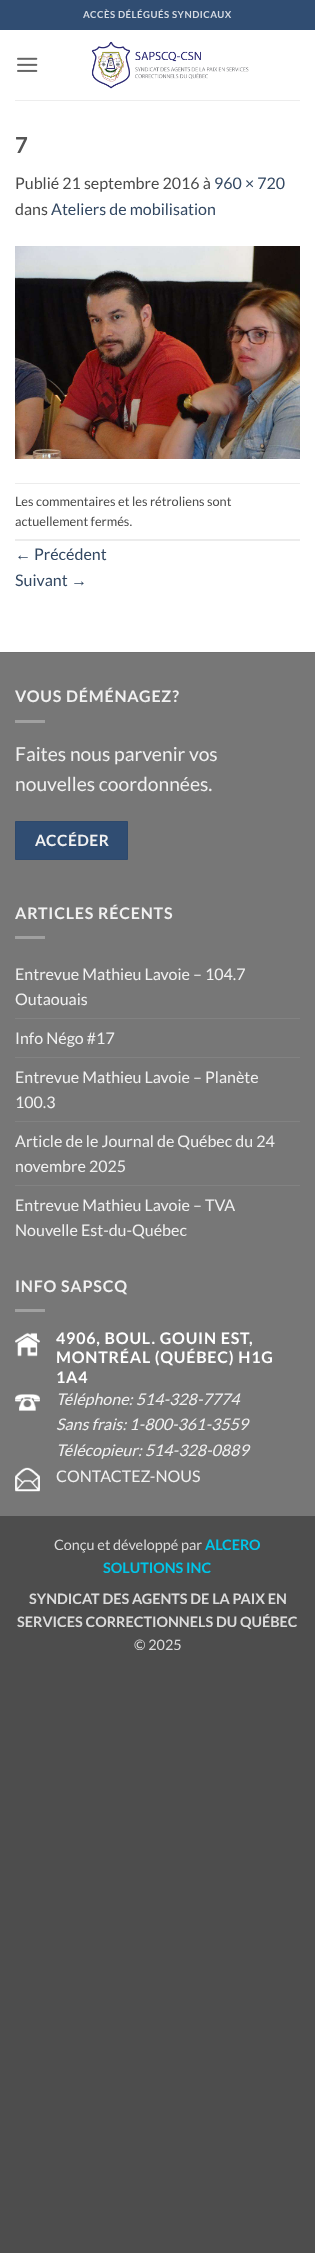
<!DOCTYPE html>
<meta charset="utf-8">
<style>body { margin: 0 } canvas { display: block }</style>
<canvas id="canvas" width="315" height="2253"></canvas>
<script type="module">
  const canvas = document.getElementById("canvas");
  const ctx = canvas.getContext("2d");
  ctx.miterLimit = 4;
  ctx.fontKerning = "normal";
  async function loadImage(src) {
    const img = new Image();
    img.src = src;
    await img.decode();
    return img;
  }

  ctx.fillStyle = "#4d4d4d";
  ctx.fillRect(0, 0, 315, 2253);
  ctx.fillStyle = "#ffffff";
  ctx.fillRect(0, 30, 315, 622);
  ctx.fillStyle = "#304d72";
  ctx.fillRect(0, 0, 315, 30);
  ctx.letterSpacing = "0.5px";
  ctx.font = "bold 9.6px Lato";
  ctx.fillStyle = "#d6dbe3";
  ctx.fillText("ACCÈS DÉLÉGUÉS SYNDICAUX", 83, 18);
  ctx.drawImage(await loadImage("img1.png"), 17, 57, 21, 15);
  ctx.drawImage(await loadImage("img2.png"), 91, 41, 158, 48);
  ctx.fillStyle = "#ededed";
  ctx.fillRect(15, 100, 285, 1);
  ctx.letterSpacing = "0px";
  ctx.font = "bold 22px Lato";
  ctx.fillStyle = "#555555";
  ctx.fillText("7", 15, 153);
  ctx.font = "16px Lato";
  ctx.fillStyle = "#4a4a4a";
  ctx.fillText("Publié 21 septembre 2016 à", 15, 189);
  ctx.fillStyle = "#334862";
  ctx.fillText("960 × 720", 214, 189);
  ctx.fillStyle = "#4a4a4a";
  ctx.fillText("dans", 15, 215);
  ctx.fillStyle = "#334862";
  ctx.fillText("Ateliers de mobilisation", 51, 215);
  ctx.drawImage(await loadImage("img3.png"), 15, 246, 285, 213);
  ctx.fillStyle = "#ececec";
  ctx.fillRect(15, 483, 285, 1);
  ctx.fillRect(15, 539, 285, 2);
  ctx.font = "12.75px Lato";
  ctx.fillStyle = "#4a4a4a";
  ctx.fillText("Les commentaires et les rétroliens sont", 15, 506);
  ctx.fillText("actuellement fermés.", 15, 526);
  ctx.font = "16px Liberation Sans";
  ctx.fillStyle = "#334862";
  ctx.fillText("←", 15, 560);
  ctx.font = "16px Lato";
  ctx.fillText("Précédent", 34, 560);
  ctx.fillText("Suivant", 15, 586);
  ctx.font = "16px Liberation Sans";
  ctx.fillText("→", 71, 586);
  ctx.fillStyle = "#777777";
  ctx.fillRect(0, 653, 315, 863);
  ctx.fillStyle = "#717171";
  ctx.fillRect(0, 652, 315, 1);
  ctx.letterSpacing = "0.8px";
  ctx.font = "bold 16px Lato";
  ctx.fillStyle = "#f1f1f1";
  ctx.fillText("VOUS DÉMÉNAGEZ?", 15, 702);
  ctx.fillStyle = "#a0a0a0";
  ctx.fillRect(15, 720, 30, 3);
  ctx.letterSpacing = "0px";
  ctx.font = "19.25px Lato";
  ctx.fillStyle = "#f1f1f1";
  ctx.fillText("Faites nous parvenir vos", 15, 761);
  ctx.fillText("nouvelles coordonnées.", 15, 791);
  ctx.fillStyle = "#304d72";
  ctx.beginPath();
  ctx.rect(15.5, 821.5, 112, 38);
  ctx.fill();
  ctx.strokeStyle = "#2e496c";
  ctx.stroke();
  ctx.letterSpacing = "0.5px";
  ctx.font = "bold 15.5px Lato";
  ctx.fillStyle = "#f1f1f1";
  ctx.fillText("ACCÉDER", 35, 846);
  ctx.letterSpacing = "0.8px";
  ctx.font = "bold 16px Lato";
  ctx.fillText("ARTICLES RÉCENTS", 15, 919);
  ctx.fillStyle = "#a0a0a0";
  ctx.fillRect(15, 936, 30, 3);
  ctx.letterSpacing = "0px";
  ctx.font = "16px Lato";
  ctx.fillStyle = "#f1f1f1";
  ctx.fillText("Entrevue Mathieu Lavoie – 104.7", 15, 980);
  ctx.fillText("Outaouais", 15, 1005);
  ctx.fillStyle = "#828282";
  ctx.fillRect(15, 1018, 285, 1);
  ctx.fillStyle = "#f1f1f1";
  ctx.fillText("Info Négo #17", 15, 1044);
  ctx.fillStyle = "#828282";
  ctx.fillRect(15, 1057, 285, 1);
  ctx.fillStyle = "#f1f1f1";
  ctx.fillText("Entrevue Mathieu Lavoie – Planète", 15, 1083);
  ctx.fillText("100.3", 15, 1108);
  ctx.fillStyle = "#828282";
  ctx.fillRect(15, 1121, 285, 1);
  ctx.fillStyle = "#f1f1f1";
  ctx.fillText("Article de le Journal de Québec du 24", 15, 1147);
  ctx.fillText("novembre 2025", 15, 1172);
  ctx.fillStyle = "#828282";
  ctx.fillRect(15, 1185, 285, 1);
  ctx.fillStyle = "#f1f1f1";
  ctx.fillText("Entrevue Mathieu Lavoie – TVA", 15, 1211);
  ctx.fillText("Nouvelle Est-du-Québec", 15, 1236);
  ctx.letterSpacing = "0.8px";
  ctx.font = "bold 16px Lato";
  ctx.fillText("INFO SAPSCQ", 15, 1292);
  ctx.fillStyle = "#a0a0a0";
  ctx.fillRect(15, 1309, 30, 3);
  ctx.drawImage(await loadImage("img4.png"), 15, 1332, 25, 25);
  ctx.fillStyle = "#ffffff";
  ctx.fillText("4906, BOUL. GOUIN EST,", 56, 1344);
  ctx.fillText("MONTRÉAL (QUÉBEC) H1G", 56, 1363);
  ctx.fillText("1A4", 56, 1383);
  ctx.drawImage(await loadImage("img5.png"), 15, 1394, 25, 17);
  ctx.letterSpacing = "0px";
  ctx.font = "italic 16px Lato";
  ctx.fillStyle = "#f1f1f1";
  ctx.fillText("Téléphone: 514-328-7774", 56, 1405);
  ctx.fillText("Sans frais: 1-800-361-3559", 56, 1430);
  ctx.fillText("Télécopieur: 514-328-0889", 56, 1456);
  ctx.drawImage(await loadImage("img6.png"), 15, 1467, 25, 25);
  ctx.font = "16px Lato";
  ctx.fillText("CONTACTEZ-NOUS", 56, 1482);
  ctx.font = "14.4px Lato";
  ctx.fillStyle = "#dbdbdb";
  ctx.fillText("Conçu et développé par", 54, 1550);
  ctx.font = "bold 14.4px Lato";
  ctx.fillStyle = "#00c5e8";
  ctx.fillText("ALCERO", 205, 1550);
  ctx.fillText("SOLUTIONS INC", 103, 1573);
  ctx.fillStyle = "#dbdbdb";
  ctx.fillText("SYNDICAT DES AGENTS DE LA PAIX EN", 29, 1604);
  ctx.fillText("SERVICES CORRECTIONNELS DU QUÉBEC", 17, 1627);
  ctx.font = "14.4px Lato";
  ctx.fillText("© 2025", 134, 1650);
</script>
